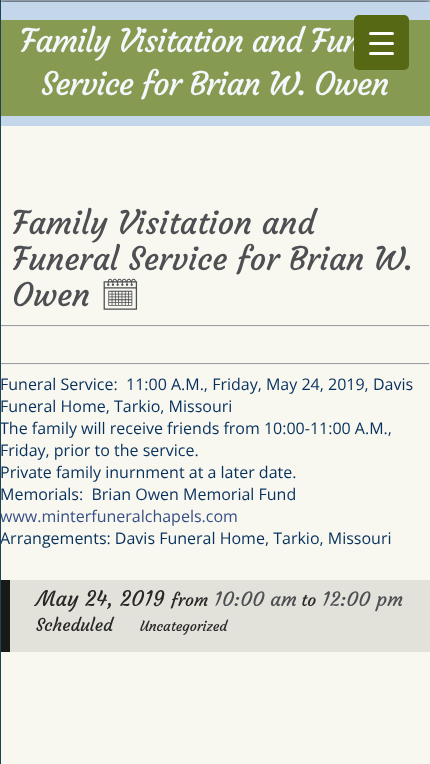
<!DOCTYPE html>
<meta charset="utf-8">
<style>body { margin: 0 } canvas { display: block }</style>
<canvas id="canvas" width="430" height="764"></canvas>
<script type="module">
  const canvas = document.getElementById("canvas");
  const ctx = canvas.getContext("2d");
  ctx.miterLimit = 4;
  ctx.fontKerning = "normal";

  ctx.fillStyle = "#c4d6e9";
  ctx.fillRect(0, 0, 430, 764);
  ctx.save();
  ctx.beginPath();
  ctx.rect(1, 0, 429, 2);
  ctx.clip();
  ctx.fillStyle = "#000000";
  ctx.filter = "blur(2.5px)";
  ctx.beginPath();
  ctx.rect(0, 2, 430, 150);
  ctx.fill();
  ctx.filter = "none";
  ctx.restore();
  ctx.fillStyle = "#f8f7f0";
  ctx.fillRect(1, 126, 429, 638);
  ctx.fillStyle = "#9f9f9f";
  ctx.fillRect(0, 325, 430, 1);
  ctx.fillStyle = "#eeeeee";
  ctx.fillRect(429, 325, 1, 2);
  ctx.fillRect(0, 326, 430, 1);
  ctx.fillStyle = "#9f9f9f";
  ctx.fillRect(0, 363, 430, 1);
  ctx.fillStyle = "#eeeeee";
  ctx.fillRect(429, 363, 1, 2);
  ctx.fillRect(0, 364, 430, 1);
  ctx.font = "16px Open Sans";
  ctx.fillStyle = "#07315d";
  ctx.fillText("The family will receive friends from 10:00-11:00 A.M.,", 0, 434);
  ctx.fillStyle = "#385088";
  ctx.fillText("www.minterfuneralchapels.com", 0, 522);
  ctx.fillStyle = "#07315d";
  ctx.fillText("Arrangements: Davis Funeral Home, Tarkio, Missouri", 0, 544);
  ctx.fillStyle = "#1d4354";
  ctx.fillRect(0, 0, 1, 764);
  ctx.fillStyle = "#879a52";
  ctx.fillRect(1, 20, 429, 96);
  ctx.letterSpacing = "-1px";
  ctx.font = "32px Courgette";
  ctx.fillStyle = "#f4f7fb";
  ctx.fillText("Family Visitation and Fun", 20, 52);
  ctx.fillText("Service for Brian W. Owen", 41, 95);
  ctx.fillStyle = "#576814";
  ctx.beginPath();
  ctx.roundRect(354, 15, 55, 55, 5);
  ctx.fill();
  ctx.fillStyle = "#ffffff";
  ctx.beginPath();
  ctx.roundRect(369, 42, 25, 3, 1.5);
  ctx.fill();
  ctx.beginPath();
  ctx.roundRect(369, 32, 25, 3, 1.5);
  ctx.fill();
  ctx.beginPath();
  ctx.roundRect(369, 52, 25, 3, 1.5);
  ctx.fill();
  ctx.letterSpacing = "0px";
  ctx.fillStyle = "#4d4f53";
  ctx.fillText("Family Visitation and", 12, 234);
  ctx.fillText("Funeral Service for Brian W.", 12, 270);
  ctx.fillText("Owen", 12, 306);
  ctx.font = "32px Noto Emoji";
  ctx.fillText("🗓", 100, 306);
  ctx.font = "16px Open Sans";
  ctx.fillStyle = "#07315d";
  ctx.fillText("Funeral Service:  11:00 A.M., Friday, May 24, 2019, Davis", 0, 390);
  ctx.fillText("Funeral Home, Tarkio, Missouri", 0, 412);
  ctx.fillText("Friday, prior to the service.", 0, 456);
  ctx.fillText("Private family inurnment at a later date.", 0, 478);
  ctx.fillText("Memorials:  Brian Owen Memorial Fund", 0, 500);
  ctx.fillStyle = "#e2e1da";
  ctx.fillRect(10, 580, 420, 72);
  ctx.fillStyle = "#191918";
  ctx.fillRect(1, 580, 9, 72);
  ctx.font = "21px Courgette";
  ctx.fillStyle = "#282827";
  ctx.fillText("May 24, 2019", 36, 606);
  ctx.font = "17.5px Courgette";
  ctx.fillText("from", 171, 606);
  ctx.font = "19.5px Courgette";
  ctx.fillStyle = "#4d4f53";
  ctx.fillText("10:00 am", 214, 606);
  ctx.font = "17.5px Courgette";
  ctx.fillStyle = "#282827";
  ctx.fillText("to", 301, 606);
  ctx.font = "19.5px Courgette";
  ctx.fillStyle = "#4d4f53";
  ctx.fillText("12:00 pm", 322, 606);
  ctx.font = "17.5px Courgette";
  ctx.fillStyle = "#282827";
  ctx.fillText("Scheduled", 36, 631);
  ctx.font = "14px Courgette";
  ctx.fillText("Uncategorized", 140, 631);
</script>
